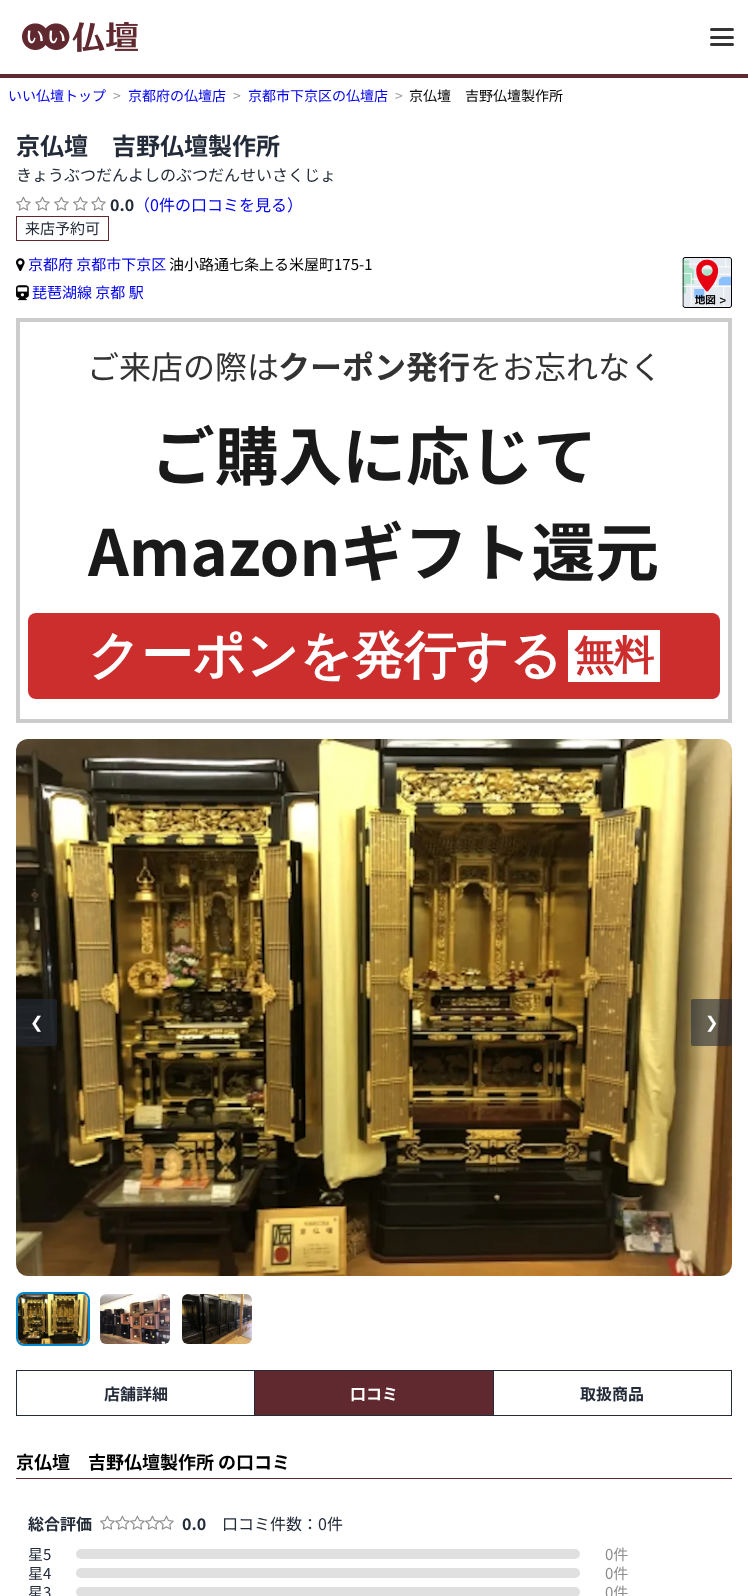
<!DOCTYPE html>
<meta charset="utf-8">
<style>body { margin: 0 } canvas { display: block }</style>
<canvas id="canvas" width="748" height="1596"></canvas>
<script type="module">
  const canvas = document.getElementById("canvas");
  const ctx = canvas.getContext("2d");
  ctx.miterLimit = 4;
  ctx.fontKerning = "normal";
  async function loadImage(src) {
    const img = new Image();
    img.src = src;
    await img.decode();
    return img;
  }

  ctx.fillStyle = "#ffffff";
  ctx.fillRect(0, 0, 748, 1596);
  ctx.fillStyle = "#60282f";
  ctx.fillRect(0, 74, 748, 4);
  ctx.drawImage(await loadImage("img1.png"), 22, 22, 116, 30);
  ctx.fillStyle = "#333333";
  ctx.beginPath();
  ctx.roundRect(710, 28, 24, 3, 1.5);
  ctx.fill();
  ctx.beginPath();
  ctx.roundRect(710, 36, 24, 3, 1.5);
  ctx.fill();
  ctx.beginPath();
  ctx.roundRect(710, 43, 24, 3, 1.5);
  ctx.fill();
  ctx.font = "14px Noto Sans JP";
  ctx.fillStyle = "#0000ee";
  ctx.fillText("いい仏壇トップ", 8, 101);
  ctx.fillStyle = "#999999";
  ctx.fillText(">", 113, 101);
  ctx.fillStyle = "#0000ee";
  ctx.fillText("京都府の仏壇店", 128, 101);
  ctx.fillStyle = "#999999";
  ctx.fillText(">", 233, 101);
  ctx.fillStyle = "#0000ee";
  ctx.fillText("京都市下京区の仏壇店", 248, 101);
  ctx.fillStyle = "#999999";
  ctx.fillText(">", 395, 101);
  ctx.save();
  ctx.beginPath();
  ctx.rect(409, 88, 154, 14);
  ctx.clip();
  ctx.fillStyle = "#000000";
  ctx.fillText("京仏壇　吉野仏壇製作所", 409, 101);
  ctx.restore();
  ctx.font = "bold 24px Noto Sans JP";
  ctx.fillStyle = "#232b39";
  ctx.fillText("京仏壇　吉野仏壇製作所", 16, 155);
  ctx.font = "16px Noto Sans JP";
  ctx.fillText("きょうぶつだんよしのぶつだんせいさくじょ", 16, 181);
  ctx.drawImage(await loadImage("img2.png"), 16, 196, 15, 15);
  ctx.drawImage(await loadImage("img2.png"), 35, 196, 15, 15);
  ctx.drawImage(await loadImage("img2.png"), 54, 196, 15, 15);
  ctx.drawImage(await loadImage("img2.png"), 73, 196, 15, 15);
  ctx.drawImage(await loadImage("img2.png"), 91, 196, 15, 15);
  ctx.font = "bold 16px Noto Sans JP";
  ctx.fillText("0.0", 110, 211);
  ctx.font = "16px Noto Sans JP";
  ctx.fillStyle = "#0000ee";
  ctx.fillText("（0件の口コミを見る）", 134, 211);
  ctx.strokeStyle = "#60282f";
  ctx.strokeRect(16.5, 216.5, 92, 24);
  ctx.font = "15px Noto Sans JP";
  ctx.fillStyle = "#232b39";
  ctx.fillText("来店予約可", 25, 234);
  ctx.drawImage(await loadImage("img3.png"), 16, 258, 9, 13);
  ctx.fillStyle = "#0000ee";
  ctx.fillText("京都府 京都市下京区", 28, 270);
  ctx.fillStyle = "#000000";
  ctx.fillText("油小路通七条上る米屋町175-1", 169, 270);
  ctx.drawImage(await loadImage("img4.png"), 16, 285, 13, 16);
  ctx.fillStyle = "#0000ee";
  ctx.fillText("琵琶湖線 京都 駅", 32, 298);
  ctx.drawImage(await loadImage("img5.png"), 682, 257, 50, 51);
  ctx.strokeStyle = "#cccccc";
  ctx.lineWidth = 4;
  ctx.strokeRect(18, 320, 712, 401);
  ctx.font = "32px Noto Sans JP";
  ctx.fillStyle = "#333333";
  ctx.fillText("ご来店の際は", 87, 379);
  ctx.font = "bold 32px Noto Sans JP";
  ctx.fillText("クーポン発行", 278, 379);
  ctx.font = "32px Noto Sans JP";
  ctx.fillText("をお忘れなく", 470, 379);
  ctx.font = "bold 63.75px Noto Sans JP";
  ctx.fillStyle = "#1a1a1a";
  ctx.fillText("ご購入に応じて", 151, 480);
  ctx.fillText("Amazonギフト還元", 88, 576);
  ctx.fillStyle = "#cc2d2d";
  ctx.beginPath();
  ctx.roundRect(28, 613, 692, 86, 8);
  ctx.fill();
  ctx.font = "bold 51.9px WenQuanYi Zen Hei";
  ctx.fillStyle = "#ffffff";
  ctx.fillText("クーポンを発行する", 88, 673);
  ctx.fillRect(568, 630, 92, 52);
  ctx.font = "bold 40px WenQuanYi Zen Hei";
  ctx.fillStyle = "#cc2d2d";
  ctx.fillText("無料", 574, 669);
  ctx.drawImage(await loadImage("img6.png"), 16, 739, 716, 537);
  ctx.fillStyle = "rgba(35, 43, 57, 0.6)";
  ctx.beginPath();
  ctx.roundRect(16, 999, 41, 47, 2);
  ctx.fill();
  ctx.font = "16px DejaVu Sans";
  ctx.fillStyle = "#ffffff";
  ctx.fillText("❮", 30, 1028);
  ctx.fillStyle = "rgba(35, 43, 57, 0.6)";
  ctx.beginPath();
  ctx.roundRect(691, 999, 41, 47, 2);
  ctx.fill();
  ctx.fillStyle = "#ffffff";
  ctx.fillText("❯", 705, 1028);
  ctx.beginPath();
  ctx.roundRect(17, 1293, 72, 52, 7);
  ctx.strokeStyle = "#0187cd";
  ctx.lineWidth = 2;
  ctx.stroke();
  ctx.drawImage(await loadImage("img7.png"), 18, 1294, 70, 50);
  ctx.drawImage(await loadImage("img8.png"), 100, 1294, 70, 50);
  ctx.drawImage(await loadImage("img9.png"), 182, 1294, 70, 50);
  ctx.strokeStyle = "#232b39";
  ctx.lineWidth = 1;
  ctx.strokeRect(16.5, 1370.5, 715, 45);
  ctx.font = "bold 16px Noto Sans JP";
  ctx.fillStyle = "#232b39";
  ctx.fillText("店舗詳細", 104, 1400);
  ctx.fillStyle = "#60282f";
  ctx.fillRect(255, 1371, 238, 44);
  ctx.fillStyle = "#232b39";
  ctx.fillRect(254, 1371, 1, 44);
  ctx.fillStyle = "#ffffff";
  ctx.fillText("口コミ", 350, 1400);
  ctx.fillStyle = "#232b39";
  ctx.fillRect(493, 1371, 1, 44);
  ctx.fillText("取扱商品", 580, 1400);
  ctx.fillStyle = "#60282f";
  ctx.fillRect(16, 1478, 716, 1);
  ctx.font = "bold 18px Noto Sans JP";
  ctx.fillStyle = "#000000";
  ctx.fillText("京仏壇　吉野仏壇製作所 の口コミ", 16, 1469);
  ctx.font = "bold 16px Noto Sans JP";
  ctx.fillStyle = "#232b39";
  ctx.fillText("総合評価", 28, 1530);
  ctx.drawImage(await loadImage("img2.png"), 100, 1515, 15, 15);
  ctx.drawImage(await loadImage("img2.png"), 115, 1515, 15, 15);
  ctx.drawImage(await loadImage("img2.png"), 130, 1515, 15, 15);
  ctx.drawImage(await loadImage("img2.png"), 145, 1515, 15, 15);
  ctx.drawImage(await loadImage("img10.png"), 159, 1515, 15, 15);
  ctx.fillText("0.0", 182, 1530);
  ctx.font = "16px Noto Sans JP";
  ctx.fillText("口コミ件数：0件", 222, 1530);
  ctx.font = "15px Noto Sans JP";
  ctx.fillText("星5", 28, 1560);
  ctx.fillStyle = "#e0e0e0";
  ctx.beginPath();
  ctx.roundRect(76, 1549, 504, 10, 5);
  ctx.fill();
  ctx.fillStyle = "#8d8d8f";
  ctx.fillText("0件", 605, 1560);
  ctx.fillStyle = "#232b39";
  ctx.fillText("星4", 28, 1579);
  ctx.fillStyle = "#e0e0e0";
  ctx.beginPath();
  ctx.roundRect(76, 1568, 504, 10, 5);
  ctx.fill();
  ctx.fillStyle = "#8d8d8f";
  ctx.fillText("0件", 605, 1579);
  ctx.fillStyle = "#232b39";
  ctx.fillText("星3", 28, 1598);
  ctx.fillStyle = "#e0e0e0";
  ctx.beginPath();
  ctx.roundRect(76, 1587, 504, 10, 5);
  ctx.fill();
  ctx.fillStyle = "#8d8d8f";
  ctx.fillText("0件", 605, 1598);
</script>
